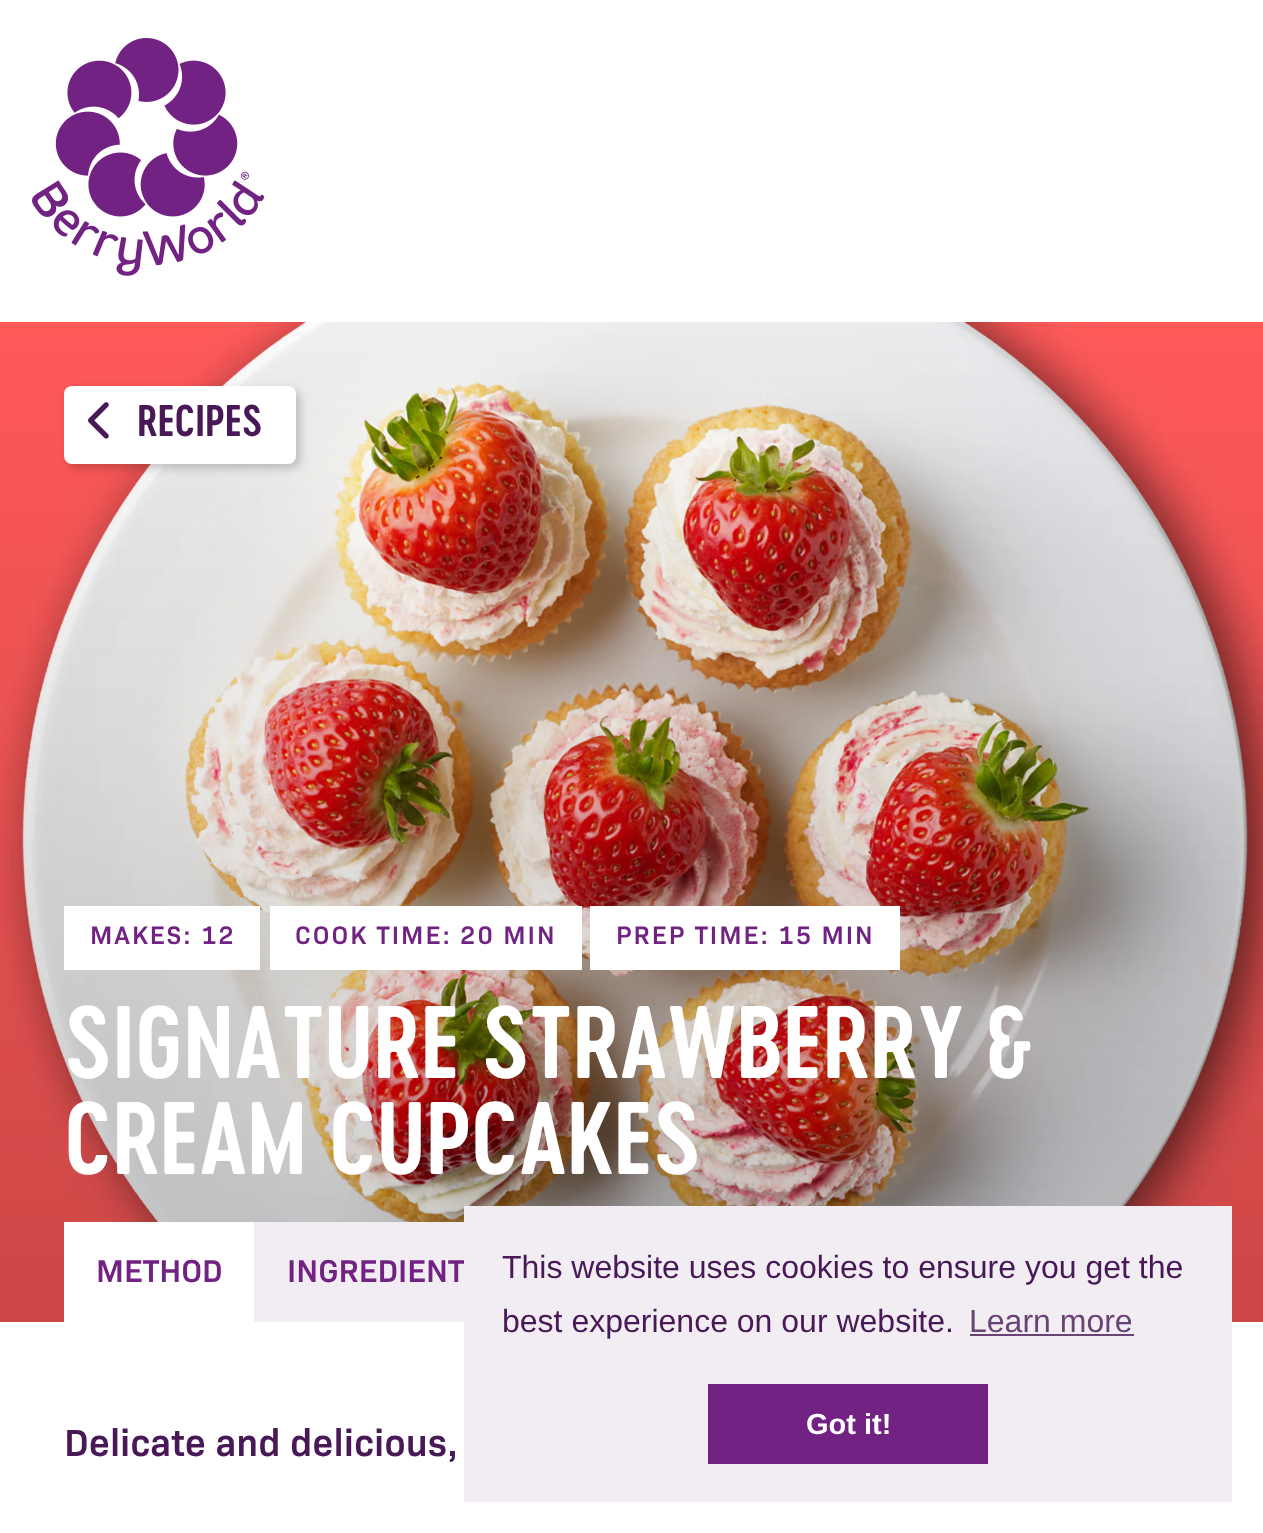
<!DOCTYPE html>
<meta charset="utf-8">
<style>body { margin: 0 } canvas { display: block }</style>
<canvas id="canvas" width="1263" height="1533"></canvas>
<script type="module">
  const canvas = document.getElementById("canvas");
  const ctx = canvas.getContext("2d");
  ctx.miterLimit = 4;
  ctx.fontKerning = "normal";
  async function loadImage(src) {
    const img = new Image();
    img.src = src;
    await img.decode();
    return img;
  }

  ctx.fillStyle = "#ffffff";
  ctx.fillRect(0, 0, 1263, 1533);
  ctx.drawImage(await loadImage("img1.png"), 32, 38, 232, 238);
  ctx.drawImage(await loadImage("img2.png"), 0, 322, 1263, 1000);
  ctx.fillStyle = "rgba(0, 0, 0, 0.2)";
  ctx.filter = "blur(5px)";
  ctx.beginPath();
  ctx.roundRect(68, 390, 232, 78, 8);
  ctx.fill();
  ctx.filter = "none";
  ctx.fillStyle = "#ffffff";
  ctx.beginPath();
  ctx.roundRect(64, 386, 232, 78, 8);
  ctx.fill();
  ctx.drawImage(await loadImage("img3.png"), 88, 402, 21, 37);
  ctx.font = "41.5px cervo";
  ctx.fillStyle = "#481956";
  ctx.fillText("RECIPES", 137, 436);
  ctx.fillStyle = "#ffffff";
  ctx.fillRect(64, 906, 196, 64);
  ctx.letterSpacing = "2px";
  ctx.font = "25.6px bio";
  ctx.fillStyle = "#722282";
  ctx.fillText("MAKES: 12", 90, 944);
  ctx.fillStyle = "#ffffff";
  ctx.fillRect(270, 906, 312, 64);
  ctx.fillStyle = "#722282";
  ctx.fillText("COOK TIME: 20 MIN", 295, 944);
  ctx.fillStyle = "#ffffff";
  ctx.fillRect(590, 906, 310, 64);
  ctx.fillStyle = "#722282";
  ctx.fillText("PREP TIME: 15 MIN", 616, 944);
  ctx.letterSpacing = "0px";
  ctx.font = "96px cervo";
  ctx.fillStyle = "#ffffff";
  ctx.fillText("SIGNATURE STRAWBERRY &", 64, 1078);
  ctx.fillText("CREAM CUPCAKES", 64, 1174);
  ctx.fillRect(64, 1222, 190, 100);
  ctx.font = "32px bio";
  ctx.fillStyle = "#722282";
  ctx.fillText("METHOD", 96, 1282);
  ctx.fillStyle = "#f1edf2";
  ctx.fillRect(254, 1222, 210, 100);
  ctx.fillStyle = "#722282";
  ctx.fillText("INGREDIENT", 287, 1282);
  ctx.font = "38.4px bio";
  ctx.fillStyle = "#481956";
  ctx.fillText("Delicate and delicious,", 64, 1456);
  ctx.fillStyle = "#f1edf2";
  ctx.fillRect(464, 1206, 768, 296);
  ctx.font = "32px Liberation Sans";
  ctx.fillStyle = "#481956";
  ctx.fillText("This website uses cookies to ensure you get the", 502, 1278);
  ctx.fillText("best experience on our website.", 502, 1332);
  ctx.fillStyle = "#6a4375";
  ctx.fillText("Learn more", 969, 1332);
  ctx.fillRect(970, 1334, 164, 2);
  ctx.fillStyle = "#722282";
  ctx.fillRect(708, 1384, 280, 80);
  ctx.font = "bold 29px Liberation Sans";
  ctx.fillStyle = "#ffffff";
  ctx.fillText("Got it!", 806, 1434);
</script>
